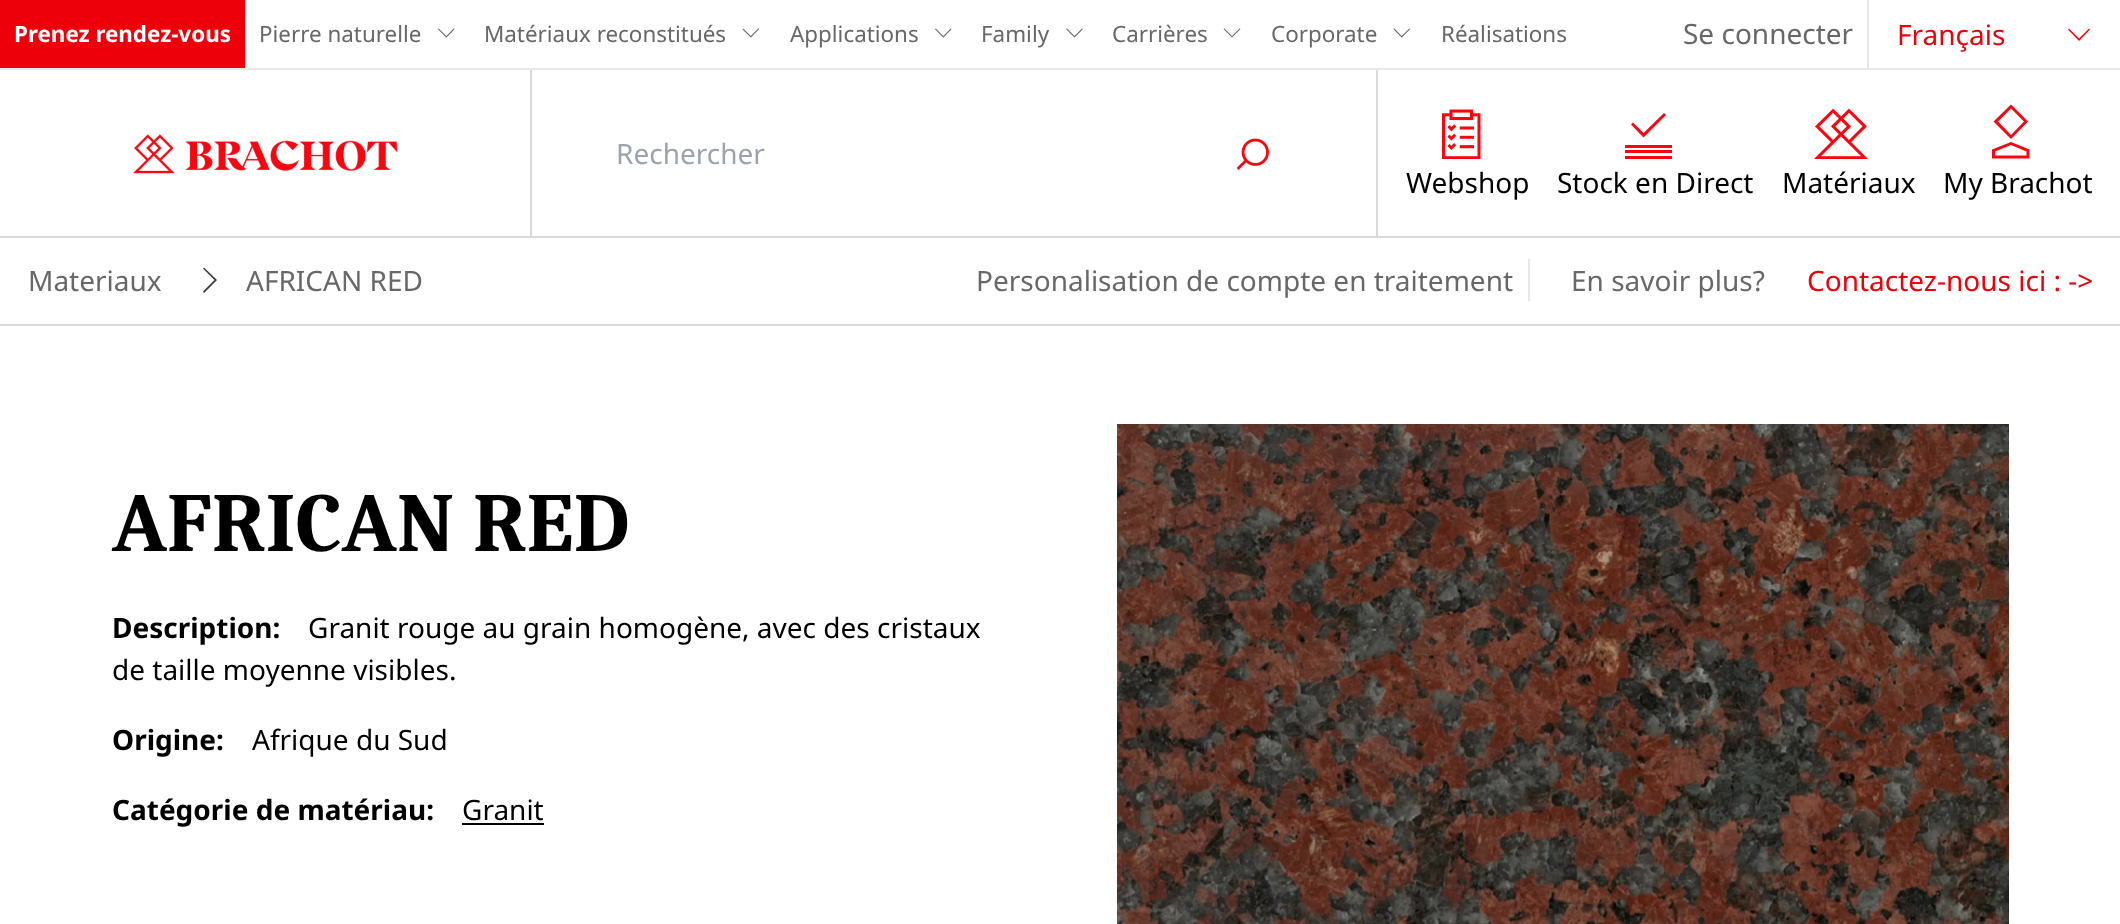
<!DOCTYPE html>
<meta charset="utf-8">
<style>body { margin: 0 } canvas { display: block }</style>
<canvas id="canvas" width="2120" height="924"></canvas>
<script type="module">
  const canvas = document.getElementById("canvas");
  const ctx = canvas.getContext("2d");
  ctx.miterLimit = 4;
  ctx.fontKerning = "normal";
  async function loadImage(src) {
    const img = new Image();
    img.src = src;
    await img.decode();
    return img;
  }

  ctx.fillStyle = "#ffffff";
  ctx.fillRect(0, 0, 2120, 924);
  ctx.fillStyle = "#e7e7e7";
  ctx.fillRect(0, 68, 2120, 2);
  ctx.fillStyle = "#ed000a";
  ctx.fillRect(0, 0, 245, 68);
  ctx.font = "bold 22.4px Noto Sans";
  ctx.fillStyle = "#ffffff";
  ctx.fillText("Prenez rendez-vous", 14, 42);
  ctx.font = "22.4px Noto Sans";
  ctx.fillStyle = "#686868";
  ctx.fillText("Pierre naturelle", 259, 42);
  ctx.drawImage(await loadImage("img1.png"), 438, 28, 17, 10);
  ctx.fillText("Matériaux reconstitués", 484, 42);
  ctx.drawImage(await loadImage("img2.png"), 742, 28, 17, 10);
  ctx.fillText("Applications", 790, 42);
  ctx.drawImage(await loadImage("img1.png"), 935, 28, 17, 10);
  ctx.fillText("Family", 981, 42);
  ctx.drawImage(await loadImage("img3.png"), 1066, 28, 17, 10);
  ctx.fillText("Carrières", 1112, 42);
  ctx.beginPath();
  ctx.moveTo(1232, 37.5);
  ctx.lineTo(1223.5, 29);
  ctx.lineTo(1224.5, 28.5);
  ctx.lineTo(1232, 36);
  ctx.lineTo(1239.5, 28.5);
  ctx.lineTo(1240.5, 29);
  ctx.closePath();
  ctx.fill();
  ctx.fillText("Corporate", 1271, 42);
  ctx.drawImage(await loadImage("img2.png"), 1393, 28, 17, 10);
  ctx.fillText("Réalisations", 1441, 42);
  ctx.fillStyle = "#e5e7eb";
  ctx.fillRect(1867, 0, 2, 68);
  ctx.font = "28px Noto Sans";
  ctx.fillStyle = "#686868";
  ctx.fillText("Se connecter", 1683, 44);
  ctx.fillStyle = "#ed000a";
  ctx.fillText("Français", 1897, 45);
  ctx.fillStyle = "#fa050f";
  ctx.beginPath();
  ctx.moveTo(2079, 41);
  ctx.lineTo(2068, 29.5);
  ctx.lineTo(2069, 28.5);
  ctx.lineTo(2079, 38.5);
  ctx.lineTo(2089, 28.5);
  ctx.lineTo(2090, 29.5);
  ctx.closePath();
  ctx.fill();
  ctx.fillStyle = "#d9d9d9";
  ctx.fillRect(0, 236, 2120, 2);
  ctx.drawImage(await loadImage("img4.png"), 133, 134, 265, 40);
  ctx.fillRect(1376, 70, 2, 166);
  ctx.fillRect(530, 70, 2, 166);
  ctx.fillStyle = "#9ca3af";
  ctx.fillText("Rechercher", 616, 164);
  ctx.drawImage(await loadImage("img5.png"), 1236, 138, 33, 32);
  ctx.drawImage(await loadImage("img6.png"), 1442, 109, 39, 50);
  ctx.fillStyle = "#000000";
  ctx.fillText("Webshop", 1406, 193);
  ctx.fillStyle = "#fa050f";
  ctx.fillRect(1625, 156, 47, 3);
  ctx.fillRect(1625, 150, 47, 3);
  ctx.fillRect(1625, 145, 47, 3);
  ctx.beginPath();
  ctx.moveTo(1643.5, 137.5);
  ctx.lineTo(1631, 124.5);
  ctx.lineTo(1633, 122.5);
  ctx.lineTo(1643.5, 133);
  ctx.lineTo(1664, 113);
  ctx.lineTo(1666, 115);
  ctx.closePath();
  ctx.fill();
  ctx.fillStyle = "#000000";
  ctx.fillText("Stock en Direct", 1557, 193);
  ctx.drawImage(await loadImage("img7.png"), 1814, 108, 54, 51);
  ctx.fillText("Matériaux", 1782, 193);
  ctx.fillStyle = "#fa050f";
  ctx.beginPath();
  ctx.moveTo(2011, 108.5);
  ctx.lineTo(2024, 121.5);
  ctx.lineTo(2011, 135);
  ctx.lineTo(1998, 121.5);
  ctx.closePath();
  ctx.moveTo(2011, 104.5);
  ctx.lineTo(1993.5, 121.5);
  ctx.lineTo(2011, 139);
  ctx.lineTo(2028, 121.5);
  ctx.closePath();
  ctx.moveTo(2011, 145);
  ctx.lineTo(2026.5, 151.5);
  ctx.lineTo(2026.5, 155.5);
  ctx.lineTo(1995, 155.5);
  ctx.lineTo(1995, 151.5);
  ctx.closePath();
  ctx.moveTo(2011, 142);
  ctx.lineTo(1992, 149.5);
  ctx.lineTo(1992, 158.5);
  ctx.lineTo(2029.5, 158.5);
  ctx.lineTo(2029.5, 149.5);
  ctx.closePath();
  ctx.fill();
  ctx.fillStyle = "#000000";
  ctx.fillText("My Brachot", 1943, 193);
  ctx.fillStyle = "#d9d9d9";
  ctx.fillRect(0, 324, 2120, 2);
  ctx.fillStyle = "#686868";
  ctx.fillText("Materiaux", 28, 291);
  ctx.fillStyle = "#3a3a3a";
  ctx.beginPath();
  ctx.moveTo(217, 280);
  ctx.lineTo(204, 267.5);
  ctx.lineTo(203, 268.5);
  ctx.lineTo(214.5, 280);
  ctx.lineTo(203, 291.5);
  ctx.lineTo(204, 293);
  ctx.closePath();
  ctx.fill();
  ctx.fillStyle = "#686868";
  ctx.fillText("AFRICAN RED", 246, 291);
  ctx.fillStyle = "#e7e7e7";
  ctx.fillRect(1528, 259, 2, 42);
  ctx.fillStyle = "#686868";
  ctx.fillText("Personalisation de compte en traitement", 976, 291);
  ctx.fillText("En savoir plus?", 1571, 291);
  ctx.fillStyle = "#ed000a";
  ctx.fillText("Contactez-nous ici : ->", 1807, 291);
  ctx.font = "bold 84px Caladea";
  ctx.fillStyle = "#000000";
  ctx.fillText("AFRICAN RED", 112, 551);
  ctx.drawImage(await loadImage("img8.png"), 1117, 424, 892, 500);
  ctx.font = "bold 28px Noto Sans";
  ctx.fillText("Description:", 112, 638);
  ctx.font = "28px Noto Sans";
  ctx.fillText("Granit rouge au grain homogène, avec des cristaux", 308, 638);
  ctx.fillText("de taille moyenne visibles.", 112, 680);
  ctx.font = "bold 28px Noto Sans";
  ctx.fillText("Origine:", 112, 750);
  ctx.font = "28px Noto Sans";
  ctx.fillText("Afrique du Sud", 252, 750);
  ctx.font = "bold 28px Noto Sans";
  ctx.fillText("Catégorie de matériau:", 112, 820);
  ctx.font = "28px Noto Sans";
  ctx.fillText("Granit", 462, 820);
  ctx.fillRect(462, 823, 82, 2);
</script>
